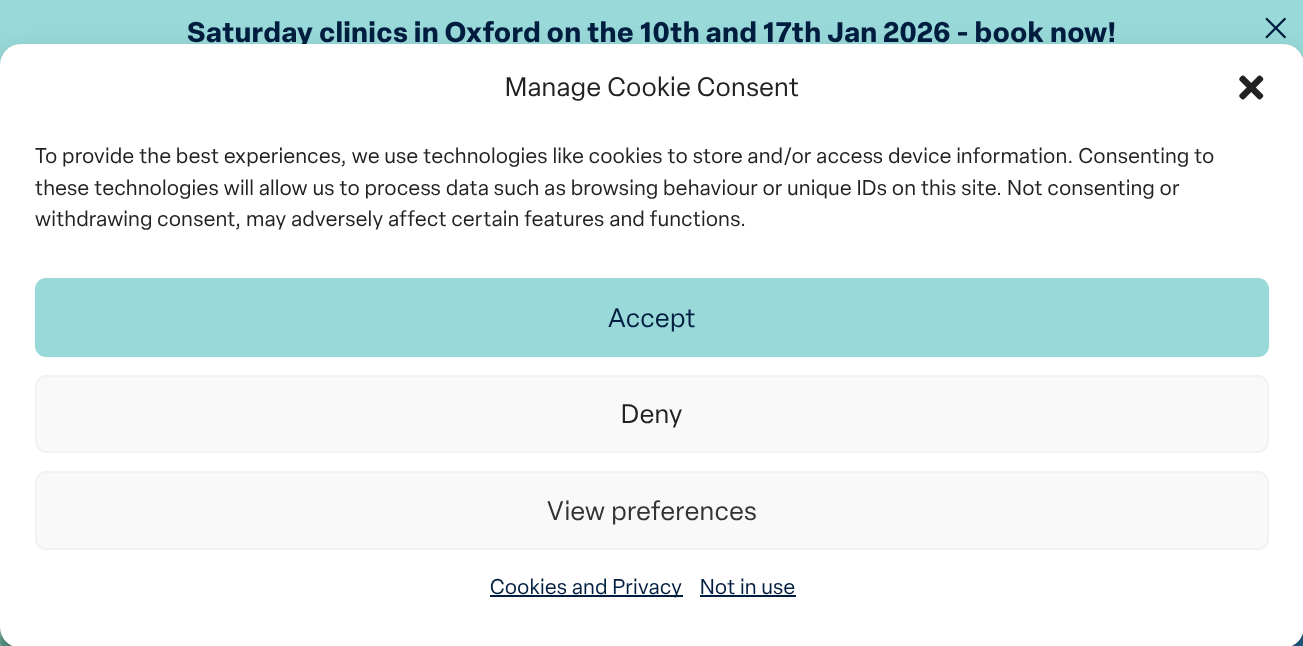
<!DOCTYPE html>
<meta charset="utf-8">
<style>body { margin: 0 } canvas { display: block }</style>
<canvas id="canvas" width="1303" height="646"></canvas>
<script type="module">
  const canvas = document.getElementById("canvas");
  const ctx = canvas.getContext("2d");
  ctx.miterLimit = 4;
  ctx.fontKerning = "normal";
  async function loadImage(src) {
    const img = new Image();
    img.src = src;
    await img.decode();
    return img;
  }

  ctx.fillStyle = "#99d9d9";
  ctx.fillRect(0, 0, 1303, 646);
  ctx.letterSpacing = "0.72px";
  ctx.font = "bold 28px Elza";
  ctx.fillStyle = "#011e41";
  ctx.fillText("Saturday clinics in Oxford on the 10th and 17th Jan 2026 - book now!", 187, 42);
  ctx.drawImage(await loadImage("img1.png"), 1265, 17, 22, 22);
  ctx.drawImage(await loadImage("img3.png"), 0, 627, 1303, 19);
  ctx.fillStyle = "rgba(58, 190, 172, 0.5)";
  ctx.beginPath();
  ctx.moveTo(783, 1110);
  ctx.lineTo(-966, 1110);
  ctx.lineTo(-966, 467);
  ctx.lineTo(783, 467);
  ctx.bezierCurveTo(783, 467, 682, 599, 682, 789);
  ctx.bezierCurveTo(682, 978, 783, 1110, 783, 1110);
  ctx.closePath();
  ctx.fill();
  ctx.fillStyle = "rgba(0, 0, 0, 0.23)";
  ctx.filter = "blur(5px)";
  ctx.beginPath();
  ctx.roundRect(0, 54, 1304, 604, 21);
  ctx.fill();
  ctx.filter = "none";
  ctx.fillStyle = "rgba(0, 0, 0, 0.19)";
  ctx.filter = "blur(17.5px)";
  ctx.beginPath();
  ctx.roundRect(0, 61, 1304, 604, 21);
  ctx.fill();
  ctx.filter = "none";
  ctx.fillStyle = "#ffffff";
  ctx.beginPath();
  ctx.roundRect(0, 44, 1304, 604, 21);
  ctx.fill();
  ctx.letterSpacing = "0.7px";
  ctx.font = "26.25px Elza";
  ctx.fillStyle = "#222222";
  ctx.fillText("Manage Cookie Consent", 505, 96);
  ctx.drawImage(await loadImage("img2.png"), 1239, 75, 25, 25);
  ctx.letterSpacing = "0.54px";
  ctx.font = "21px Elza";
  ctx.fillText("To provide the best experiences, we use technologies like cookies to store and/or access device information. Consenting to", 35, 163);
  ctx.fillText("these technologies will allow us to process data such as browsing behaviour or unique IDs on this site. Not consenting or", 35, 195);
  ctx.fillText("withdrawing consent, may adversely affect certain features and functions.", 35, 226);
  ctx.fillStyle = "#99d9d9";
  ctx.beginPath();
  ctx.roundRect(36, 279, 1232, 77, 10);
  ctx.fill();
  ctx.strokeStyle = "#99d9d9";
  ctx.lineWidth = 2;
  ctx.stroke();
  ctx.letterSpacing = "0.7px";
  ctx.font = "26.25px Elza";
  ctx.fillStyle = "#011e41";
  ctx.fillText("Accept", 608, 327);
  ctx.fillStyle = "#f9f9f9";
  ctx.beginPath();
  ctx.roundRect(36, 376, 1232, 76, 10);
  ctx.fill();
  ctx.strokeStyle = "#f2f2f2";
  ctx.stroke();
  ctx.fillStyle = "#222222";
  ctx.fillText("Deny", 621, 423);
  ctx.fillStyle = "#f9f9f9";
  ctx.beginPath();
  ctx.roundRect(36, 472, 1232, 77, 10);
  ctx.fill();
  ctx.stroke();
  ctx.fillStyle = "#333333";
  ctx.fillText("View preferences", 547, 520);
  ctx.fillStyle = "#011e41";
  ctx.fillRect(490, 595, 193, 2);
  ctx.letterSpacing = "0.54px";
  ctx.font = "21px Elza";
  ctx.fillText("Cookies and Privacy", 490, 594);
  ctx.fillText("Not in use", 700, 594);
  ctx.fillRect(700, 595, 96, 2);
</script>
